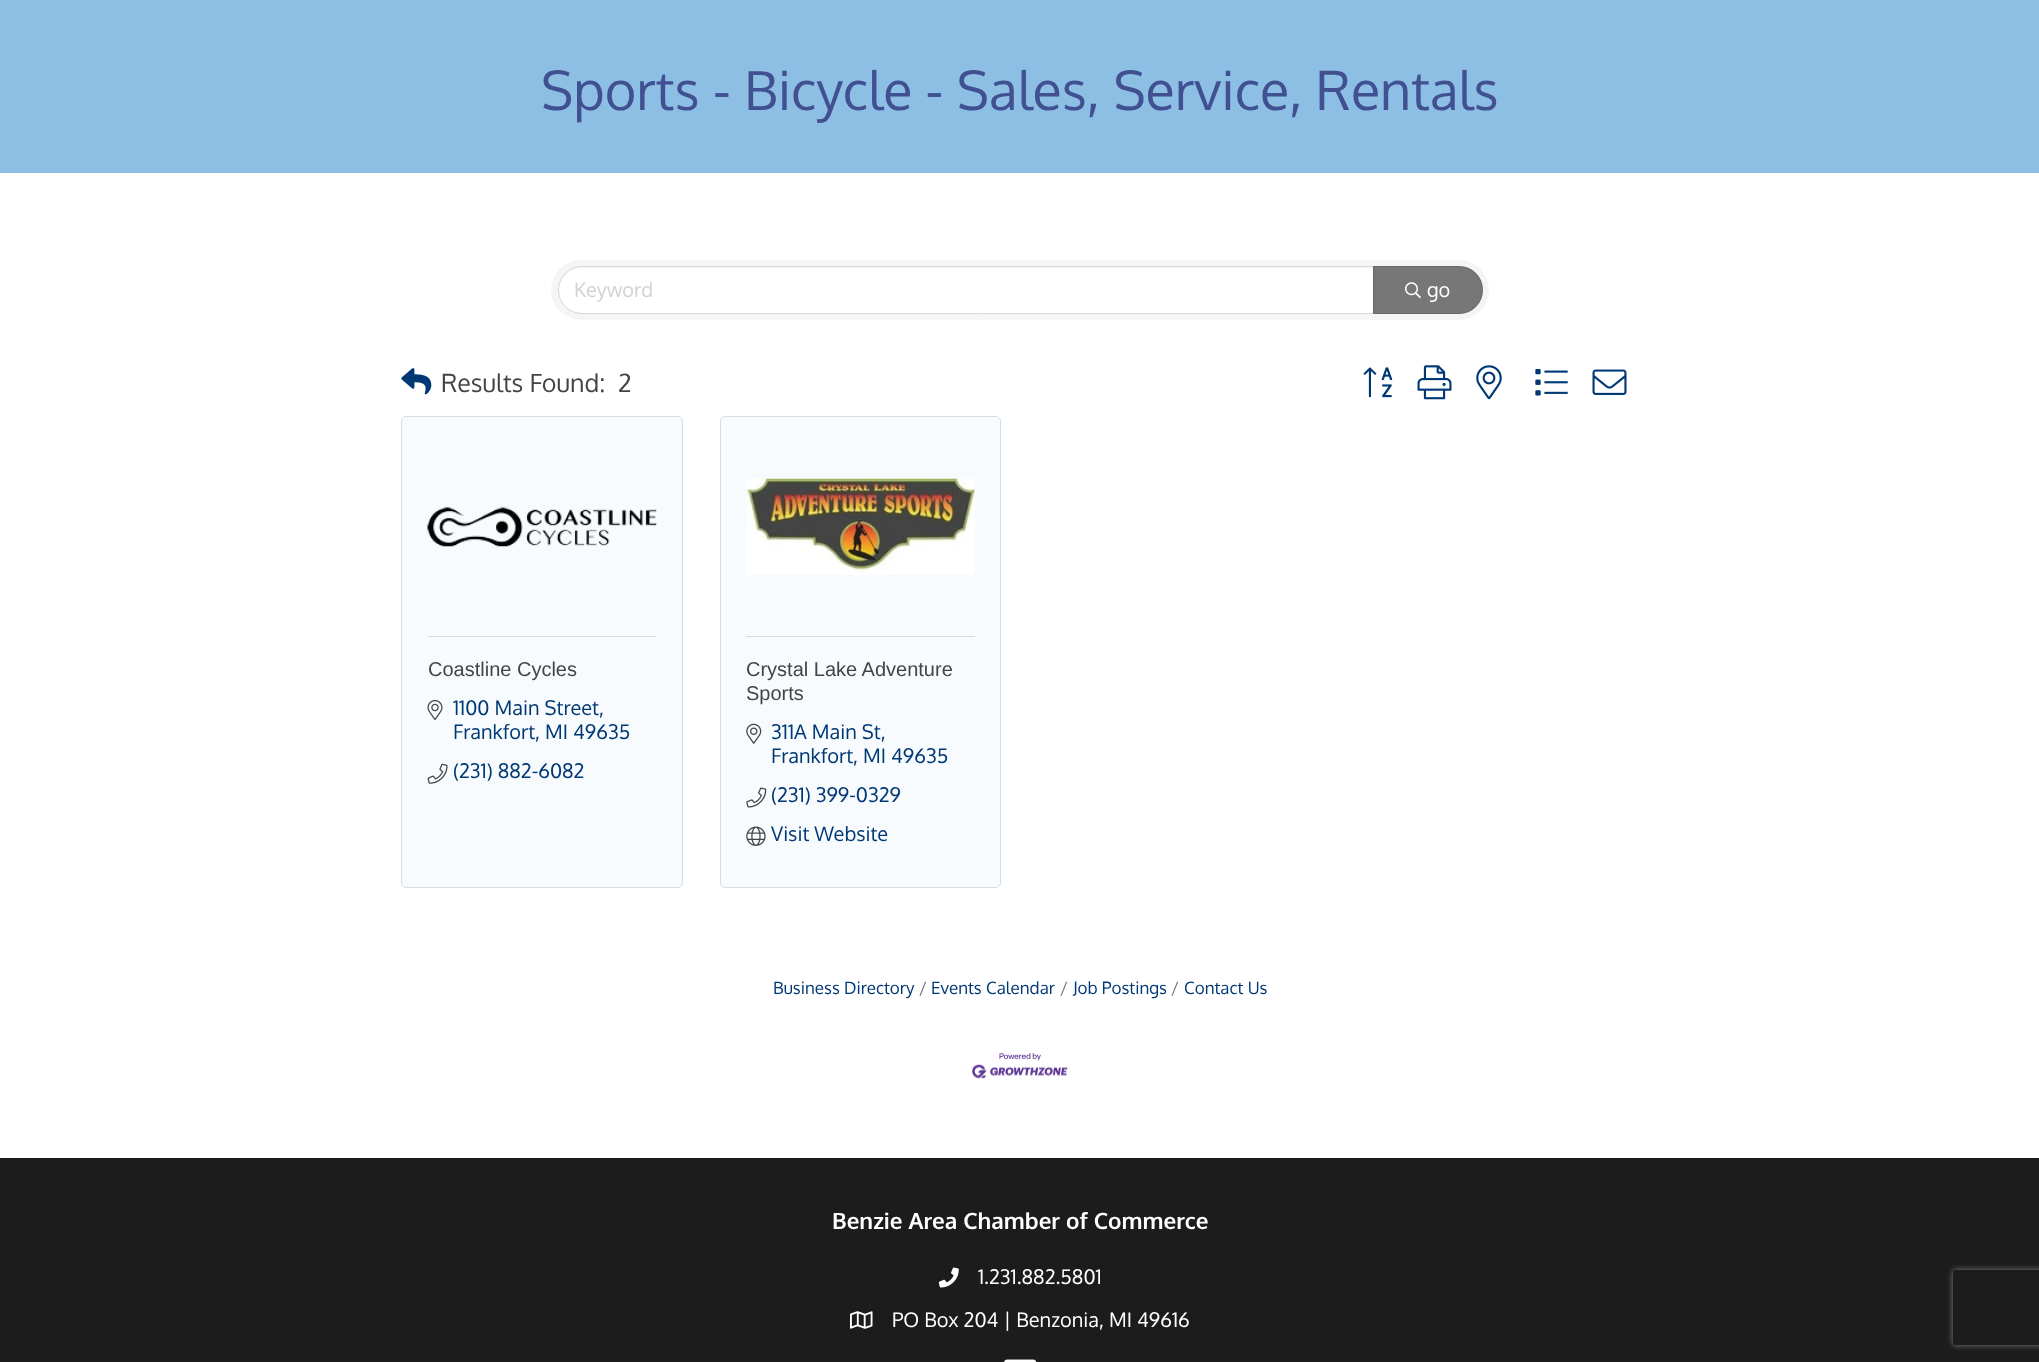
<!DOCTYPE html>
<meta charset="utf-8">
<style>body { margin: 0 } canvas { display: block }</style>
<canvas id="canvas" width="2039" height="1362"></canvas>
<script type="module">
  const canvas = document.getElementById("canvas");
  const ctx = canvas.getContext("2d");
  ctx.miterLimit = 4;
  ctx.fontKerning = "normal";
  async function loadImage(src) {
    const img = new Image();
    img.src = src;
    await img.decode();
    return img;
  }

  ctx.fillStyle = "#ffffff";
  ctx.fillRect(0, 0, 2039, 1362);
  ctx.fillStyle = "#8dbee3";
  ctx.fillRect(0, 0, 2039, 173);
  ctx.font = "53.75px Oxygen";
  ctx.fillStyle = "#415091";
  ctx.fillText("Sports - Bicycle - Sales, Service, Rentals", 541, 110);
  ctx.fillStyle = "#f5f5f5";
  ctx.beginPath();
  ctx.roundRect(551, 260, 938, 60, 30);
  ctx.fill();
  ctx.fillStyle = "#ffffff";
  ctx.beginPath();
  ctx.roundRect(559, 268, 814, 45, [22.5, 2, 2, 22.5]);
  ctx.fill();
  ctx.beginPath();
  ctx.roundRect(558.5, 266.5, 815, 47, [23.5, 2.5, 2.5, 23.5]);
  ctx.strokeStyle = "rgba(0, 0, 0, 0.12)";
  ctx.stroke();
  ctx.font = "20px Oxygen";
  ctx.fillStyle = "#d2d2d2";
  ctx.fillText("Keyword", 574, 297);
  ctx.fillStyle = "#777777";
  ctx.beginPath();
  ctx.roundRect(1373, 266, 110, 48, [0, 24, 24, 0]);
  ctx.fill();
  ctx.beginPath();
  ctx.roundRect(1373.5, 266.5, 109, 47, [0, 23.5, 23.5, 0]);
  ctx.stroke();
  ctx.drawImage(await loadImage("img1.png"), 1405, 282, 16, 17);
  ctx.fillStyle = "#ffffff";
  ctx.fillText("go", 1427, 297);
  ctx.drawImage(await loadImage("img2.png"), 401, 368, 31, 27);
  ctx.font = "25px Oxygen";
  ctx.fillStyle = "#444444";
  ctx.fillText("Results Found:", 441, 392);
  ctx.fillText("2", 618, 392);
  ctx.drawImage(await loadImage("img3.png"), 1363, 367, 30, 31);
  ctx.drawImage(await loadImage("img4.png"), 1417, 365, 35, 35);
  ctx.drawImage(await loadImage("img5.png"), 1476, 365, 26, 35);
  ctx.drawImage(await loadImage("img6.png"), 1535, 369, 33, 27);
  ctx.drawImage(await loadImage("img7.png"), 1592, 369, 35, 26);
  ctx.fillStyle = "#f7fbfd";
  ctx.beginPath();
  ctx.roundRect(401, 416, 282, 472, 5);
  ctx.fill();
  ctx.beginPath();
  ctx.roundRect(401.5, 416.5, 281, 471, 4.5);
  ctx.stroke();
  ctx.drawImage(await loadImage("img8.png"), 427, 507, 230, 40);
  ctx.fillStyle = "#d8dcdd";
  ctx.fillRect(428, 636, 228, 1);
  ctx.font = "20px Liberation Sans";
  ctx.fillStyle = "#444444";
  ctx.fillText("Coastline Cycles", 428, 676);
  ctx.drawImage(await loadImage("img9.png"), 427, 700, 16, 20);
  ctx.font = "20px Oxygen";
  ctx.fillStyle = "#003875";
  ctx.fillText("1100 Main Street,", 453, 715);
  ctx.fillText("Frankfort, MI 49635", 453, 739);
  ctx.drawImage(await loadImage("img10.png"), 427, 763, 21, 21);
  ctx.fillText("(231) 882-6082", 453, 778);
  ctx.fillStyle = "#f7fbfd";
  ctx.beginPath();
  ctx.roundRect(720, 416, 281, 472, 5);
  ctx.fill();
  ctx.beginPath();
  ctx.roundRect(720.5, 416.5, 280, 471, 4.5);
  ctx.stroke();
  ctx.drawImage(await loadImage("img11.png"), 746, 478, 229, 97);
  ctx.fillStyle = "#d8dcdd";
  ctx.fillRect(746, 636, 229, 1);
  ctx.font = "20px Liberation Sans";
  ctx.fillStyle = "#444444";
  ctx.fillText("Crystal Lake Adventure", 746, 676);
  ctx.fillText("Sports", 746, 700);
  ctx.drawImage(await loadImage("img12.png"), 746, 723, 16, 21);
  ctx.font = "20px Oxygen";
  ctx.fillStyle = "#003875";
  ctx.fillText("311A Main St,", 771, 739);
  ctx.fillText("Frankfort, MI 49635", 771, 763);
  ctx.drawImage(await loadImage("img13.png"), 746, 787, 21, 21);
  ctx.fillText("(231) 399-0329", 771, 802);
  ctx.drawImage(await loadImage("img14.png"), 746, 826, 20, 20);
  ctx.fillText("Visit Website", 771, 841);
  ctx.font = "17px Oxygen";
  ctx.fillText("Business Directory", 773, 994);
  ctx.fillStyle = "#6c757d";
  ctx.fillText("/", 919, 994);
  ctx.fillStyle = "#003875";
  ctx.fillText("Events Calendar", 931, 994);
  ctx.fillStyle = "#6c757d";
  ctx.fillText("/", 1060, 994);
  ctx.fillStyle = "#003875";
  ctx.fillText("Job Postings", 1073, 994);
  ctx.fillStyle = "#6c757d";
  ctx.fillText("/", 1171, 994);
  ctx.fillStyle = "#003875";
  ctx.fillText("Contact Us", 1184, 994);
  ctx.drawImage(await loadImage("img15.png"), 972, 1053, 96, 26);
  ctx.fillStyle = "#1c1c1c";
  ctx.fillRect(0, 1158, 2039, 204);
  ctx.font = "bold 22.5px Oxygen";
  ctx.fillStyle = "#ffffff";
  ctx.fillText("Benzie Area Chamber of Commerce", 832, 1229);
  ctx.drawImage(await loadImage("img16.png"), 938, 1267, 21, 21);
  ctx.font = "20px Oxygen";
  ctx.fillText("1.231.882.5801", 978, 1284);
  ctx.drawImage(await loadImage("img17.png"), 850, 1311, 23, 18);
  ctx.fillText("PO Box 204 | Benzonia, MI 49616", 892, 1327);
  ctx.drawImage(await loadImage("img18.png"), 1004, 1359, 33, 3);
  ctx.save();
  ctx.beginPath();
  ctx.moveTo(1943, 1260);
  ctx.lineTo(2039, 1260);
  ctx.lineTo(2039, 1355);
  ctx.lineTo(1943, 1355);
  ctx.closePath();
  ctx.moveTo(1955.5, 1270);
  ctx.lineTo(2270.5, 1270);
  ctx.bezierCurveTo(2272, 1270, 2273, 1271, 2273, 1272.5);
  ctx.lineTo(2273, 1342.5);
  ctx.bezierCurveTo(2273, 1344, 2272, 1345, 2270.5, 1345);
  ctx.lineTo(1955.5, 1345);
  ctx.bezierCurveTo(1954, 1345, 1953, 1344, 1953, 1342.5);
  ctx.lineTo(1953, 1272.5);
  ctx.bezierCurveTo(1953, 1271, 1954, 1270, 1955.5, 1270);
  ctx.closePath();
  ctx.clip("evenodd");
  ctx.fillStyle = "#808080";
  ctx.filter = "blur(3px)";
  ctx.beginPath();
  ctx.roundRect(1953, 1270, 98, 75, 2.5);
  ctx.fill();
  ctx.filter = "none";
  ctx.restore();
</script>
